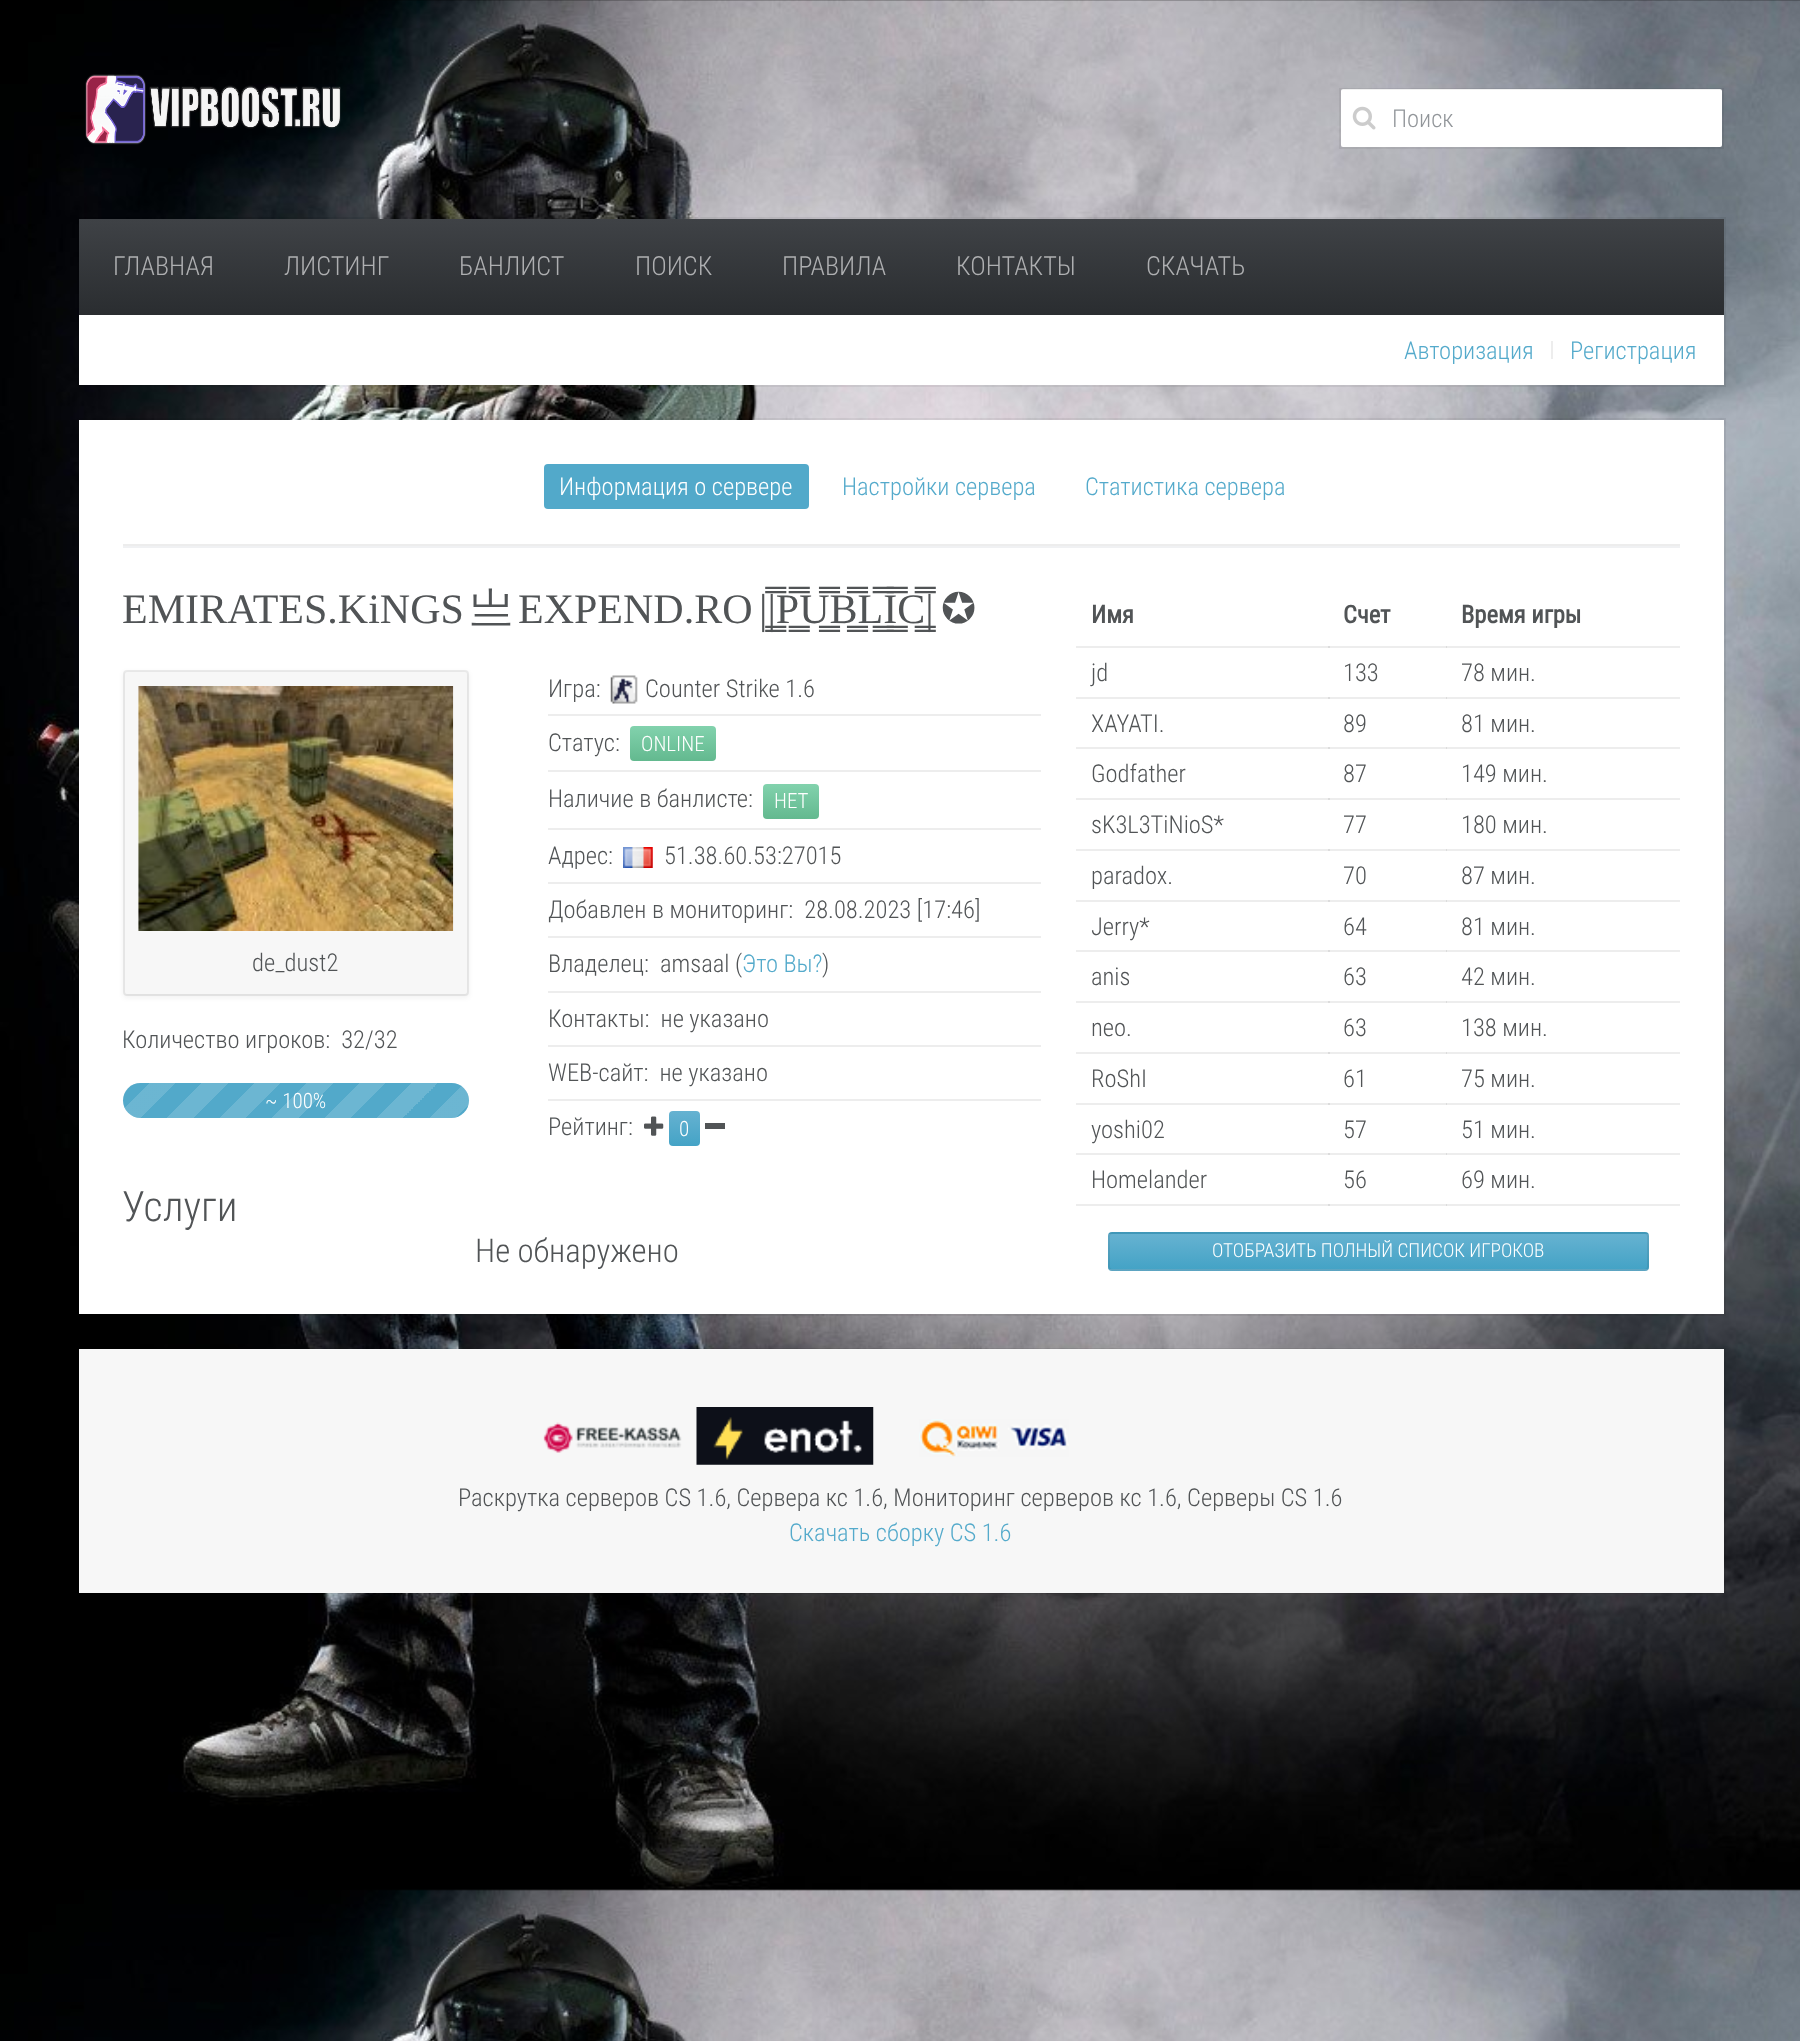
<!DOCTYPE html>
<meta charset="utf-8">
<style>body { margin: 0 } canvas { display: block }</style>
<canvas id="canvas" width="1800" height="2041"></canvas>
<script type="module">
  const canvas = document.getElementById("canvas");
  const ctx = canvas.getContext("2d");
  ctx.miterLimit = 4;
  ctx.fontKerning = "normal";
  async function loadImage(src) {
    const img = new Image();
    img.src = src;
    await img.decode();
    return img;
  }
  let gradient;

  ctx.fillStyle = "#ffffff";
  ctx.fillRect(0, 0, 1800, 2041);
  ctx.drawImage(await loadImage("img1.png"), 0, 0, 1800, 2041);
  ctx.drawImage(await loadImage("img2.png"), 85, 74, 256, 71);
  ctx.beginPath();
  ctx.roundRect(1341, 89, 381, 58, 2);
  ctx.fill();
  ctx.strokeStyle = "rgba(0, 0, 0, 0.06)";
  ctx.lineWidth = 2;
  ctx.strokeRect(1340, 89, 383, 59);
  ctx.drawImage(await loadImage("img3.png"), 1352, 106, 24, 24);
  ctx.font = "300 24.5px Roboto Condensed";
  ctx.fillStyle = "#92969a";
  ctx.fillText("Поиск", 1392, 127);
  ctx.strokeRect(78, 218, 1647, 168);
  ctx.fillStyle = "#ffffff";
  ctx.fillRect(79, 315, 1645, 70);
  gradient = ctx.createLinearGradient(901, 219, 901, 315);
  gradient.addColorStop(0, "#3f4246");
  gradient.addColorStop(1, "#2a2d30");
  ctx.fillStyle = gradient;
  ctx.fillRect(79, 219, 1645, 96);
  ctx.font = "300 26.25px Roboto Condensed";
  ctx.fillStyle = "#aeafb1";
  ctx.fillText("ГЛАВНАЯ", 113, 275);
  ctx.fillText("ЛИСТИНГ", 284, 275);
  ctx.fillText("БАНЛИСТ", 459, 275);
  ctx.fillText("ПОИСК", 635, 275);
  ctx.fillText("ПРАВИЛА", 782, 275);
  ctx.fillText("КОНТАКТЫ", 956, 275);
  ctx.fillText("СКАЧАТЬ", 1146, 275);
  ctx.font = "300 24.5px Roboto Condensed";
  ctx.fillStyle = "#54aacb";
  ctx.fillText("Авторизация", 1404, 359);
  ctx.fillStyle = "#ededed";
  ctx.fillRect(1551, 341, 2, 18);
  ctx.fillStyle = "#54aacb";
  ctx.fillText("Регистрация", 1570, 359);
  ctx.strokeRect(78, 419, 1647, 896);
  ctx.fillStyle = "#ffffff";
  ctx.fillRect(79, 420, 1645, 894);
  ctx.fillStyle = "#52a9ca";
  ctx.beginPath();
  ctx.roundRect(544, 464, 265, 45, 4);
  ctx.fill();
  ctx.fillStyle = "#ffffff";
  ctx.fillText("Информация о сервере", 559, 495);
  ctx.fillStyle = "#54aacb";
  ctx.fillText("Настройки сервера", 842, 495);
  ctx.fillText("Статистика сервера", 1085, 495);
  ctx.fillStyle = "#ededed";
  ctx.fillRect(123, 544, 1557, 2);
  ctx.fillStyle = "#f0f1f3";
  ctx.fillRect(123, 546, 1557, 2);
  ctx.font = "42px Liberation Serif";
  ctx.fillStyle = "#515456";
  ctx.fillText("EMIRATES.KiNGS", 122, 623);
  ctx.font = "500 42px WenQuanYi Zen Hei";
  ctx.fillText("亗", 470, 623);
  ctx.wordSpacing = "-4px";
  ctx.font = "42px Liberation Serif";
  ctx.fillText("EXPEND.RO ||͇̿P͇̿U͇̿B͇̿L͇̿I͇̿C͇̿|", 518, 623);
  ctx.wordSpacing = "0px";
  ctx.font = "42px DejaVu Sans";
  ctx.fillText("✪", 941, 623);
  ctx.fillStyle = "rgba(0, 0, 0, 0.05)";
  ctx.filter = "blur(2.5px)";
  ctx.beginPath();
  ctx.roundRect(123, 672, 346, 326, 4);
  ctx.fill();
  ctx.filter = "none";
  ctx.fillStyle = "#f7f7f7";
  ctx.beginPath();
  ctx.roundRect(124, 672, 343, 322, 2);
  ctx.fill();
  ctx.beginPath();
  ctx.roundRect(124, 671, 344, 324, 3);
  ctx.strokeStyle = "rgba(0, 0, 0, 0.07)";
  ctx.stroke();
  ctx.drawImage(await loadImage("img4.png"), 138, 686, 316, 245);
  ctx.font = "300 24.5px Roboto Condensed";
  ctx.fillStyle = "#515456";
  ctx.fillText("de_dust2", 252, 971);
  ctx.fillText("Количество игроков: 32/32", 122, 1048);
  ctx.fillStyle = "rgba(0, 0, 0, 0.06)";
  ctx.beginPath();
  ctx.moveTo(140, 1085);
  ctx.lineTo(452, 1085);
  ctx.bezierCurveTo(461, 1085, 469, 1093, 469, 1101);
  ctx.lineTo(469, 1100);
  ctx.bezierCurveTo(469, 1091, 461, 1083, 452, 1083);
  ctx.lineTo(140, 1083);
  ctx.bezierCurveTo(133, 1083, 127, 1087, 124, 1094);
  ctx.bezierCurveTo(127, 1089, 133, 1085, 140, 1085);
  ctx.closePath();
  ctx.fill();
  ctx.fillStyle = "#52a9ca";
  ctx.beginPath();
  ctx.roundRect(123, 1083, 346, 35, 17.5);
  ctx.fill();
  gradient = ctx.createLinearGradient(175, 1136, 123, 1083);
  gradient.addColorStop(0.25, "rgba(255, 255, 255, 0.15)");
  gradient.addColorStop(0.25, "rgba(255, 255, 255, 0)");
  gradient.addColorStop(0.5, "rgba(255, 255, 255, 0)");
  gradient.addColorStop(0.5, "rgba(255, 255, 255, 0.15)");
  gradient.addColorStop(0.75, "rgba(255, 255, 255, 0.15)");
  gradient.addColorStop(0.75, "rgba(255, 255, 255, 0)");
  gradient.addColorStop(1, "rgba(0, 0, 0, 0)");
  ctx.fillStyle = gradient;
  ctx.beginPath();
  ctx.roundRect(123, 1083, 52, 35, [17.5, 0, 0, 17.5]);
  ctx.fill();
  gradient = ctx.createLinearGradient(228, 1136, 175, 1083);
  gradient.addColorStop(0.25, "#6cb6d2");
  gradient.addColorStop(0.25, "#52a9ca");
  gradient.addColorStop(0.5, "#52a9ca");
  gradient.addColorStop(0.5, "#6cb6d2");
  gradient.addColorStop(0.75, "#6cb6d2");
  gradient.addColorStop(0.75, "#52a9ca");
  gradient.addColorStop(1, "#52a9ca");
  ctx.fillStyle = gradient;
  ctx.fillRect(175, 1083, 53, 35);
  gradient = ctx.createLinearGradient(280, 1136, 228, 1083);
  gradient.addColorStop(0.25, "#6cb6d2");
  gradient.addColorStop(0.25, "#52a9ca");
  gradient.addColorStop(0.5, "#52a9ca");
  gradient.addColorStop(0.5, "#6cb6d2");
  gradient.addColorStop(0.75, "#6cb6d2");
  gradient.addColorStop(0.75, "#52a9ca");
  gradient.addColorStop(1, "#52a9ca");
  ctx.fillStyle = gradient;
  ctx.fillRect(228, 1083, 52, 35);
  gradient = ctx.createLinearGradient(333, 1136, 280, 1083);
  gradient.addColorStop(0.25, "#6cb6d2");
  gradient.addColorStop(0.25, "#52a9ca");
  gradient.addColorStop(0.5, "#52a9ca");
  gradient.addColorStop(0.5, "#6cb6d2");
  gradient.addColorStop(0.75, "#6cb6d2");
  gradient.addColorStop(0.75, "#52a9ca");
  gradient.addColorStop(1, "#52a9ca");
  ctx.fillStyle = gradient;
  ctx.fillRect(280, 1083, 53, 35);
  gradient = ctx.createLinearGradient(385, 1136, 333, 1083);
  gradient.addColorStop(0.25, "#6cb6d2");
  gradient.addColorStop(0.25, "#52a9ca");
  gradient.addColorStop(0.5, "#52a9ca");
  gradient.addColorStop(0.5, "#6cb6d2");
  gradient.addColorStop(0.75, "#6cb6d2");
  gradient.addColorStop(0.75, "#52a9ca");
  gradient.addColorStop(1, "#52a9ca");
  ctx.fillStyle = gradient;
  ctx.fillRect(333, 1083, 52, 35);
  gradient = ctx.createLinearGradient(438, 1136, 385, 1083);
  gradient.addColorStop(0.25, "#6cb6d2");
  gradient.addColorStop(0.25, "#52a9ca");
  gradient.addColorStop(0.5, "#52a9ca");
  gradient.addColorStop(0.5, "#6cb6d2");
  gradient.addColorStop(0.75, "#6cb6d2");
  gradient.addColorStop(0.75, "#52a9ca");
  gradient.addColorStop(1, "#52a9ca");
  ctx.fillStyle = gradient;
  ctx.fillRect(385, 1083, 53, 35);
  gradient = ctx.createLinearGradient(490, 1136, 438, 1083);
  gradient.addColorStop(0.25, "rgba(255, 255, 255, 0.15)");
  gradient.addColorStop(0.25, "rgba(255, 255, 255, 0)");
  gradient.addColorStop(0.5, "rgba(255, 255, 255, 0)");
  gradient.addColorStop(0.5, "rgba(255, 255, 255, 0.15)");
  gradient.addColorStop(0.75, "rgba(255, 255, 255, 0.15)");
  gradient.addColorStop(0.75, "rgba(255, 255, 255, 0)");
  gradient.addColorStop(1, "rgba(0, 0, 0, 0)");
  ctx.fillStyle = gradient;
  ctx.beginPath();
  ctx.roundRect(438, 1083, 31, 35, [0, 17.5, 17.5, 0]);
  ctx.fill();
  ctx.font = "300 21px Roboto Condensed";
  ctx.fillStyle = "#ffffff";
  ctx.fillText("~ 100%", 265, 1108);
  ctx.font = "300 24.5px Roboto Condensed";
  ctx.fillStyle = "#515456";
  ctx.fillText("Игра:", 548, 697);
  ctx.drawImage(await loadImage("img5.png"), 610, 675, 28, 29);
  ctx.fillText("Counter Strike 1.6", 645, 697);
  ctx.fillStyle = "#ededed";
  ctx.fillRect(548, 714, 493, 2);
  ctx.fillStyle = "#515456";
  ctx.fillText("Статус:", 548, 751);
  gradient = ctx.createLinearGradient(673, 726, 673, 761);
  gradient.addColorStop(0, "#82d2ad");
  gradient.addColorStop(1, "#63b98f");
  ctx.fillStyle = gradient;
  ctx.beginPath();
  ctx.roundRect(630, 726, 86, 35, 4);
  ctx.fill();
  ctx.font = "300 21px Roboto Condensed";
  ctx.fillStyle = "#ffffff";
  ctx.fillText("ONLINE", 641, 751);
  ctx.fillStyle = "#ededed";
  ctx.fillRect(548, 770, 493, 2);
  ctx.font = "300 24.5px Roboto Condensed";
  ctx.fillStyle = "#515456";
  ctx.fillText("Наличие в банлисте:", 548, 807);
  gradient = ctx.createLinearGradient(791, 784, 791, 819);
  gradient.addColorStop(0, "#82d2ad");
  gradient.addColorStop(1, "#63b98f");
  ctx.fillStyle = gradient;
  ctx.beginPath();
  ctx.roundRect(763, 784, 56, 35, 4);
  ctx.fill();
  ctx.font = "300 21px Roboto Condensed";
  ctx.fillStyle = "#ffffff";
  ctx.fillText("НЕТ", 774, 808);
  ctx.fillStyle = "#ededed";
  ctx.fillRect(548, 828, 493, 2);
  ctx.font = "300 24.5px Roboto Condensed";
  ctx.fillStyle = "#515456";
  ctx.fillText("Адрес:", 548, 864);
  ctx.drawImage(await loadImage("img6.png"), 623, 847, 30, 21);
  ctx.fillText("51.38.60.53:27015", 664, 864);
  ctx.fillStyle = "#ededed";
  ctx.fillRect(548, 882, 493, 2);
  ctx.fillStyle = "#515456";
  ctx.fillText("Добавлен в мониторинг: 28.08.2023 [17:46]", 548, 918);
  ctx.fillStyle = "#ededed";
  ctx.fillRect(548, 936, 493, 2);
  ctx.fillStyle = "#515456";
  ctx.fillText("Владелец: amsaal (", 548, 972);
  ctx.fillStyle = "#54aacb";
  ctx.fillText("Это Вы?", 742, 972);
  ctx.fillStyle = "#515456";
  ctx.fillText(")", 822, 972);
  ctx.fillStyle = "#ededed";
  ctx.fillRect(548, 991, 493, 2);
  ctx.fillStyle = "#515456";
  ctx.fillText("Контакты: не указано", 548, 1027);
  ctx.fillStyle = "#ededed";
  ctx.fillRect(548, 1045, 493, 2);
  ctx.fillStyle = "#515456";
  ctx.fillText("WEB-сайт: не указано", 548, 1081);
  ctx.fillStyle = "#ededed";
  ctx.fillRect(548, 1099, 493, 2);
  ctx.fillStyle = "#515456";
  ctx.fillText("Рейтинг:", 548, 1135);
  ctx.drawImage(await loadImage("img7.png"), 644, 1116, 20, 20);
  gradient = ctx.createLinearGradient(684, 1111, 684, 1146);
  gradient.addColorStop(0, "#66b2d1");
  gradient.addColorStop(1, "#44a3c6");
  ctx.fillStyle = gradient;
  ctx.beginPath();
  ctx.roundRect(669, 1111, 31, 35, 4);
  ctx.fill();
  ctx.font = "300 21px Roboto Condensed";
  ctx.fillStyle = "#ffffff";
  ctx.fillText("0", 679, 1136);
  ctx.fillStyle = "#515456";
  ctx.fillRect(705, 1123, 20, 6);
  ctx.font = "300 42px Roboto Condensed";
  ctx.fillText("Услуги", 122, 1221);
  ctx.font = "300 32.75px Roboto Condensed";
  ctx.fillText("Не обнаружено", 475, 1262);
  ctx.fillStyle = "#ededed";
  ctx.fillRect(1446, 646, 234, 2);
  ctx.fillStyle = "rgba(0, 0, 0, 0.07)";
  ctx.fillRect(1328, 646, 119, 2);
  ctx.fillRect(1076, 646, 254, 2);
  ctx.font = "bold 24.5px Roboto Condensed";
  ctx.fillStyle = "#515456";
  ctx.fillText("Имя", 1091, 623);
  ctx.fillText("Счет", 1343, 623);
  ctx.fillText("Время игры", 1461, 623);
  ctx.fillStyle = "#ededed";
  ctx.fillRect(1446, 697, 234, 2);
  ctx.fillStyle = "rgba(0, 0, 0, 0.07)";
  ctx.fillRect(1328, 697, 119, 2);
  ctx.fillRect(1076, 697, 254, 2);
  ctx.font = "300 24.5px Roboto Condensed";
  ctx.fillStyle = "#515456";
  ctx.fillText("jd", 1091, 681);
  ctx.fillText("133", 1343, 681);
  ctx.fillText("78 мин.", 1461, 681);
  ctx.fillStyle = "#ededed";
  ctx.fillRect(1446, 747, 234, 2);
  ctx.fillStyle = "rgba(0, 0, 0, 0.07)";
  ctx.fillRect(1328, 747, 119, 2);
  ctx.fillRect(1076, 747, 254, 2);
  ctx.fillStyle = "#515456";
  ctx.fillText("XAYATI.", 1091, 732);
  ctx.fillText("89", 1343, 732);
  ctx.fillText("81 мин.", 1461, 732);
  ctx.fillStyle = "#ededed";
  ctx.fillRect(1446, 798, 234, 2);
  ctx.fillStyle = "rgba(0, 0, 0, 0.07)";
  ctx.fillRect(1328, 798, 119, 2);
  ctx.fillRect(1076, 798, 254, 2);
  ctx.fillStyle = "#515456";
  ctx.fillText("Godfather", 1091, 782);
  ctx.fillText("87", 1343, 782);
  ctx.fillText("149 мин.", 1461, 782);
  ctx.fillStyle = "#ededed";
  ctx.fillRect(1446, 849, 234, 2);
  ctx.fillStyle = "rgba(0, 0, 0, 0.07)";
  ctx.fillRect(1328, 849, 119, 2);
  ctx.fillRect(1076, 849, 254, 2);
  ctx.fillStyle = "#515456";
  ctx.fillText("sK3L3TiNioS*", 1091, 833);
  ctx.fillText("77", 1343, 833);
  ctx.fillText("180 мин.", 1461, 833);
  ctx.fillStyle = "#ededed";
  ctx.fillRect(1446, 900, 234, 2);
  ctx.fillStyle = "rgba(0, 0, 0, 0.07)";
  ctx.fillRect(1328, 900, 119, 2);
  ctx.fillRect(1076, 900, 254, 2);
  ctx.fillStyle = "#515456";
  ctx.fillText("paradox.", 1091, 884);
  ctx.fillText("70", 1343, 884);
  ctx.fillText("87 мин.", 1461, 884);
  ctx.fillStyle = "#ededed";
  ctx.fillRect(1446, 950, 234, 2);
  ctx.fillStyle = "rgba(0, 0, 0, 0.07)";
  ctx.fillRect(1328, 950, 119, 2);
  ctx.fillRect(1076, 950, 254, 2);
  ctx.fillStyle = "#515456";
  ctx.fillText("Jerry*", 1091, 935);
  ctx.fillText("64", 1343, 935);
  ctx.fillText("81 мин.", 1461, 935);
  ctx.fillStyle = "#ededed";
  ctx.fillRect(1446, 1001, 234, 2);
  ctx.fillStyle = "rgba(0, 0, 0, 0.07)";
  ctx.fillRect(1328, 1001, 119, 2);
  ctx.fillRect(1076, 1001, 254, 2);
  ctx.fillStyle = "#515456";
  ctx.fillText("anis", 1091, 985);
  ctx.fillText("63", 1343, 985);
  ctx.fillText("42 мин.", 1461, 985);
  ctx.fillStyle = "#ededed";
  ctx.fillRect(1446, 1052, 234, 2);
  ctx.fillStyle = "rgba(0, 0, 0, 0.07)";
  ctx.fillRect(1328, 1052, 119, 2);
  ctx.fillRect(1076, 1052, 254, 2);
  ctx.fillStyle = "#515456";
  ctx.fillText("neo.", 1091, 1036);
  ctx.fillText("63", 1343, 1036);
  ctx.fillText("138 мин.", 1461, 1036);
  ctx.fillStyle = "#ededed";
  ctx.fillRect(1446, 1103, 234, 2);
  ctx.fillStyle = "rgba(0, 0, 0, 0.07)";
  ctx.fillRect(1328, 1103, 119, 2);
  ctx.fillRect(1076, 1103, 254, 2);
  ctx.fillStyle = "#515456";
  ctx.fillText("RoShI", 1091, 1087);
  ctx.fillText("61", 1343, 1087);
  ctx.fillText("75 мин.", 1461, 1087);
  ctx.fillStyle = "#ededed";
  ctx.fillRect(1446, 1153, 234, 2);
  ctx.fillStyle = "rgba(0, 0, 0, 0.07)";
  ctx.fillRect(1328, 1153, 119, 2);
  ctx.fillRect(1076, 1153, 254, 2);
  ctx.fillStyle = "#515456";
  ctx.fillText("yoshi02", 1091, 1138);
  ctx.fillText("57", 1343, 1138);
  ctx.fillText("51 мин.", 1461, 1138);
  ctx.fillStyle = "#ededed";
  ctx.fillRect(1446, 1204, 234, 2);
  ctx.fillStyle = "rgba(0, 0, 0, 0.07)";
  ctx.fillRect(1328, 1204, 119, 2);
  ctx.fillRect(1076, 1204, 254, 2);
  ctx.fillStyle = "#515456";
  ctx.fillText("Homelander", 1091, 1188);
  ctx.fillText("56", 1343, 1188);
  ctx.fillText("69 мин.", 1461, 1188);
  ctx.save();
  ctx.beginPath();
  ctx.roundRect(1108, 1232, 541, 39, 4);
  ctx.clip();
  gradient = ctx.createLinearGradient(1378, 1199, 1378, 1234);
  gradient.addColorStop(0, "#66b2d1");
  gradient.addColorStop(1, "#44a3c6");
  ctx.fillStyle = gradient;
  ctx.fillRect(1108, 1232, 541, 2);
  gradient = ctx.createLinearGradient(1378, 1234, 1378, 1269);
  gradient.addColorStop(0, "#66b2d1");
  gradient.addColorStop(1, "#44a3c6");
  ctx.fillStyle = gradient;
  ctx.fillRect(1108, 1234, 541, 35);
  gradient = ctx.createLinearGradient(1378, 1269, 1378, 1304);
  gradient.addColorStop(0, "#66b2d1");
  gradient.addColorStop(1, "#44a3c6");
  ctx.fillStyle = gradient;
  ctx.fillRect(1108, 1269, 541, 2);
  ctx.restore();
  ctx.beginPath();
  ctx.roundRect(1109, 1233, 539, 37, 3);
  ctx.stroke();
  ctx.font = "300 19.25px Roboto Condensed";
  ctx.fillStyle = "#ffffff";
  ctx.fillText("ОТОБРАЗИТЬ ПОЛНЫЙ СПИСОК ИГРОКОВ", 1212, 1257);
  ctx.strokeStyle = "rgba(0, 0, 0, 0.06)";
  ctx.strokeRect(78, 1349, 1647, 244);
  ctx.fillStyle = "#f7f7f7";
  ctx.fillRect(79, 1349, 1645, 244);
  ctx.drawImage(await loadImage("img8.png"), 543, 1422, 139, 31);
  ctx.drawImage(await loadImage("img9.png"), 696, 1407, 178, 58);
  ctx.drawImage(await loadImage("img10.png"), 919, 1419, 150, 38);
  ctx.font = "300 24.5px Roboto Condensed";
  ctx.fillStyle = "#515456";
  ctx.fillText("Раскрутка серверов CS 1.6, Сервера кс 1.6, Мониторинг серверов кс 1.6, Серверы CS 1.6", 458, 1506);
  ctx.fillStyle = "#54aacb";
  ctx.fillText("Скачать сборку CS 1.6", 789, 1541);
</script>
